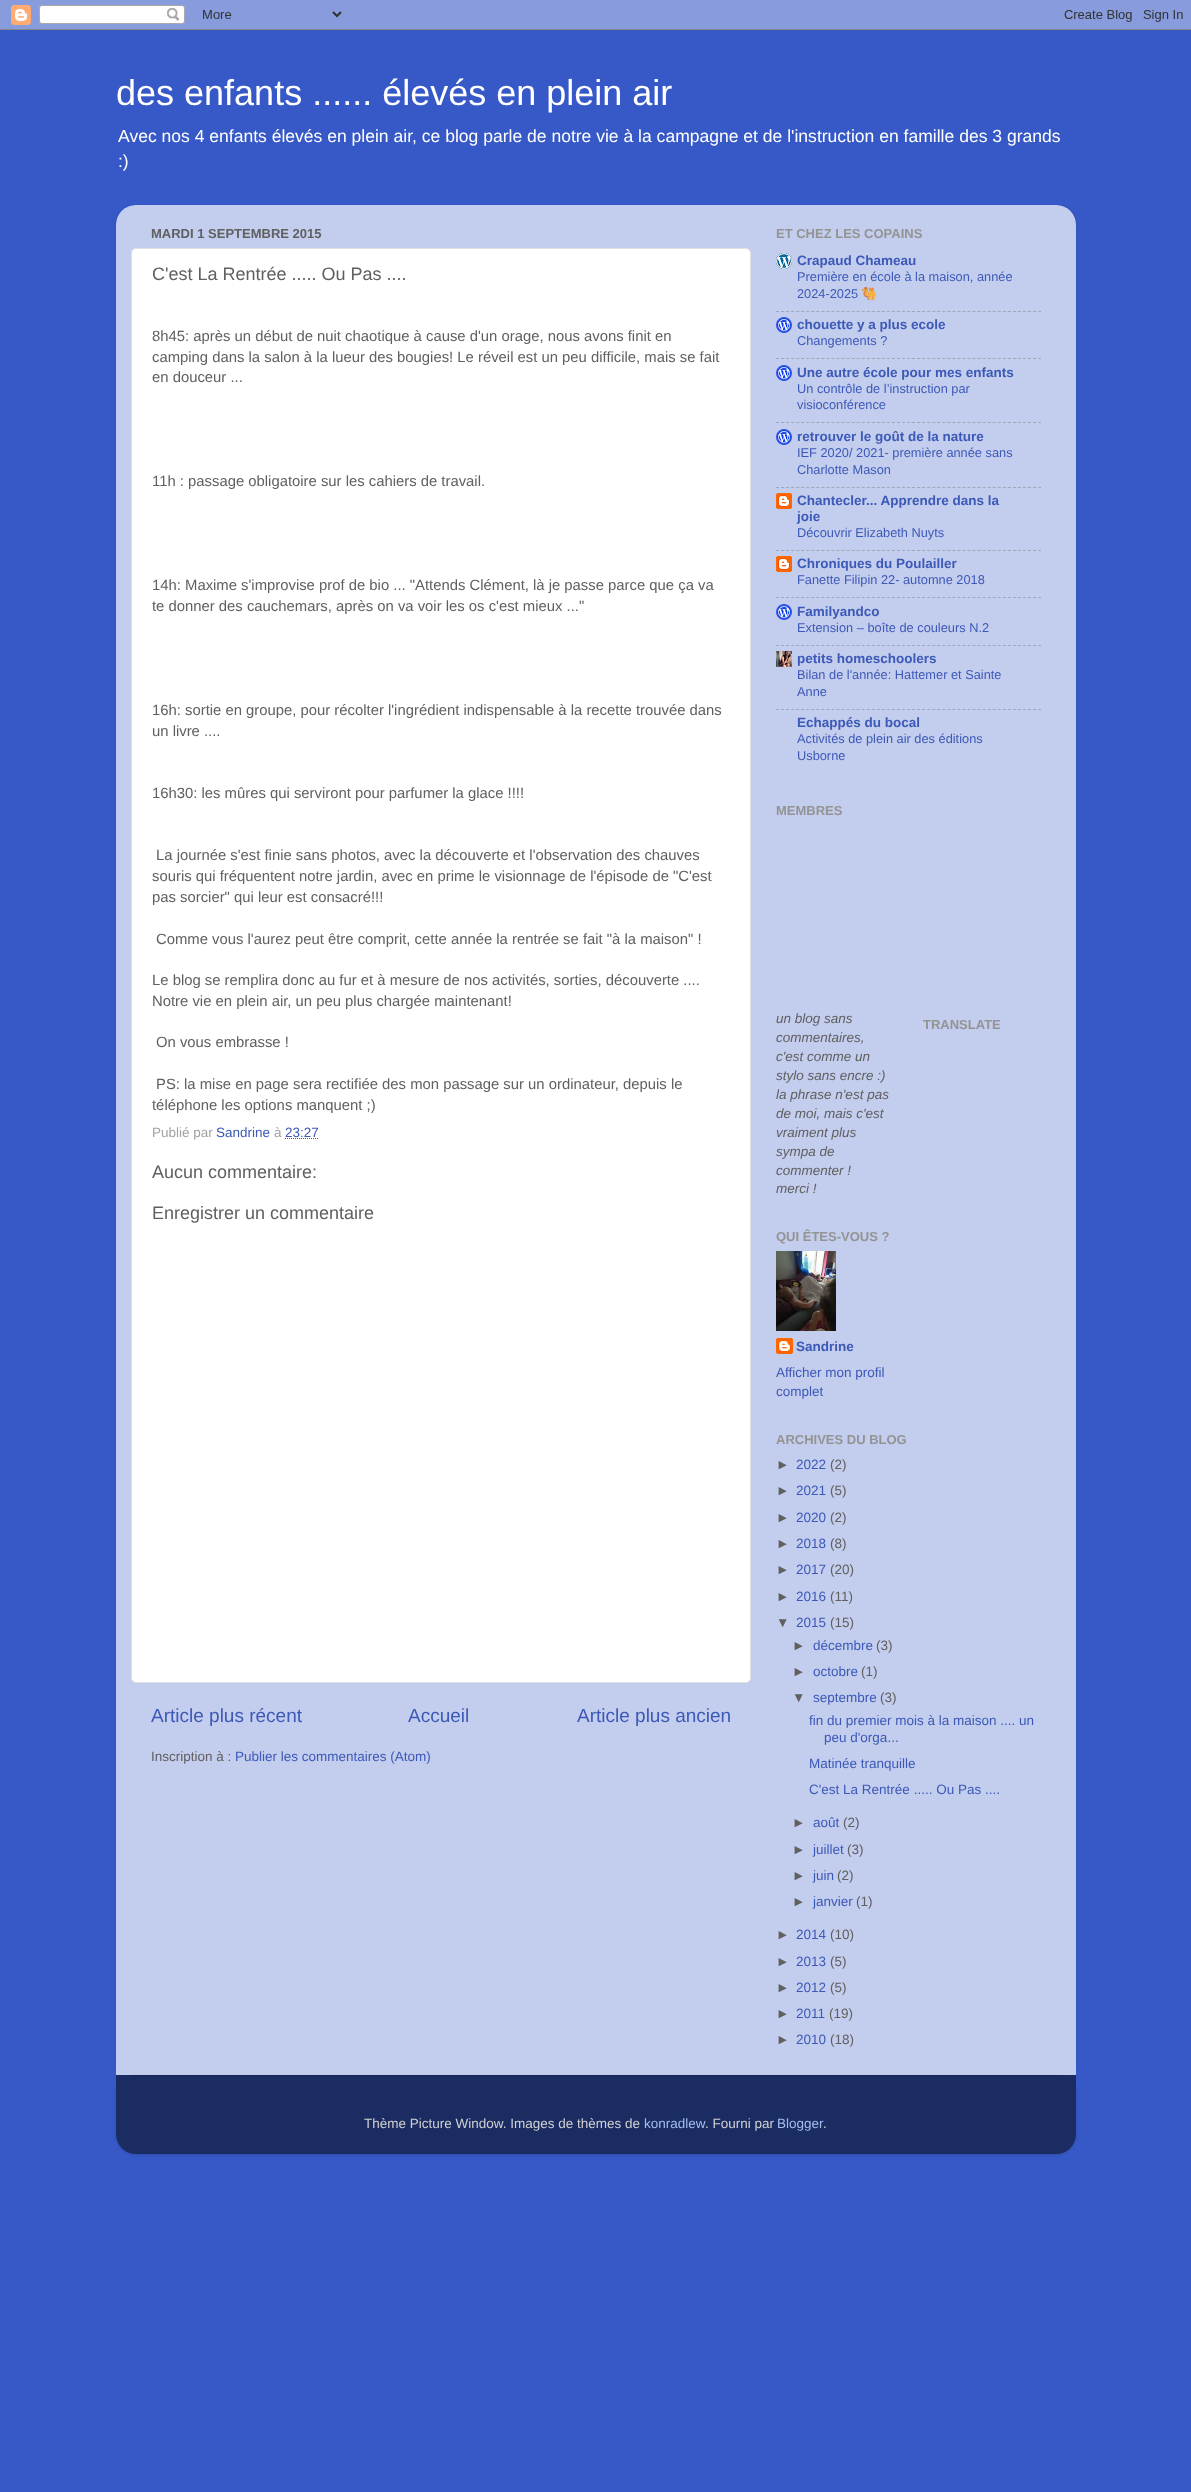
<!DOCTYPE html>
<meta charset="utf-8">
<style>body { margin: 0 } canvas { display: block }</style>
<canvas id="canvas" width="1191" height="2492"></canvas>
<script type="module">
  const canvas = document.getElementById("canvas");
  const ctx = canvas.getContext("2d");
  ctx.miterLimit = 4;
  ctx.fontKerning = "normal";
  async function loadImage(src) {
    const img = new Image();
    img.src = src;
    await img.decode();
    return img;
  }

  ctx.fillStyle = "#3759c7";
  ctx.fillRect(0, 0, 1191, 2492);
  ctx.drawImage(await loadImage("img1.png"), 0, 0, 1191, 30);
  ctx.font = "36px Liberation Sans";
  ctx.fillStyle = "#ffffff";
  ctx.fillText("des enfants ...... élevés en plein air", 116, 105);
  ctx.font = "17.55px Liberation Sans";
  ctx.fillText("Avec nos 4 enfants élevés en plein air, ce blog parle de notre vie à la campagne et de l'instruction en famille des 3 grands", 118, 142);
  ctx.fillText(":)", 118, 167);
  ctx.save();
  ctx.beginPath();
  ctx.moveTo(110, 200);
  ctx.lineTo(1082, 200);
  ctx.lineTo(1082, 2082);
  ctx.lineTo(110, 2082);
  ctx.closePath();
  ctx.moveTo(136, 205);
  ctx.lineTo(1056, 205);
  ctx.bezierCurveTo(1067, 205, 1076, 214, 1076, 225);
  ctx.lineTo(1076, 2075);
  ctx.lineTo(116, 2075);
  ctx.lineTo(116, 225);
  ctx.bezierCurveTo(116, 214, 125, 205, 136, 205);
  ctx.closePath();
  ctx.clip("evenodd");
  ctx.fillStyle = "rgba(0, 0, 0, 0.15)";
  ctx.filter = "blur(1.5px)";
  ctx.beginPath();
  ctx.roundRect(116, 206, 960, 1870, 20);
  ctx.fill();
  ctx.filter = "none";
  ctx.restore();
  ctx.drawImage(await loadImage("img2.png"), 116, 205, 960, 1870);
  ctx.font = "bold 13px Liberation Sans";
  ctx.fillStyle = "#606060";
  ctx.fillText("MARDI 1 SEPTEMBRE 2015", 151, 238);
  ctx.fillStyle = "#ffffff";
  ctx.beginPath();
  ctx.roundRect(131.5, 248.5, 619, 1434, 4.5);
  ctx.fill();
  ctx.strokeStyle = "#e2e2e2";
  ctx.stroke();
  ctx.font = "18px Liberation Sans";
  ctx.fillStyle = "#606060";
  ctx.fillText("C'est La Rentrée ..... Ou Pas ....", 152, 280);
  ctx.font = "14.85px Liberation Sans";
  ctx.fillText("8h45: après un début de nuit chaotique à cause d'un orage, nous avons finit en", 152, 341);
  ctx.fillText("camping dans la salon à la lueur des bougies! Le réveil est un peu difficile, mais se fait", 152, 362);
  ctx.fillText("en douceur ...", 152, 382);
  ctx.fillText("11h : passage obligatoire sur les cahiers de travail.", 152, 486);
  ctx.fillText("14h: Maxime s'improvise prof de bio ... \"Attends Clément, là je passe parce que ça va", 152, 590);
  ctx.fillText("te donner des cauchemars, après on va voir les os c'est mieux ...\"", 152, 611);
  ctx.fillText("16h: sortie en groupe, pour récolter l'ingrédient indispensable à la recette trouvée dans", 152, 715);
  ctx.fillText("un livre ....", 152, 736);
  ctx.fillText("16h30: les mûres qui serviront pour parfumer la glace !!!!", 152, 798);
  ctx.fillText("La journée s'est finie sans photos, avec la découverte et l'observation des chauves", 156, 860);
  ctx.fillText("souris qui fréquentent notre jardin, avec en prime le visionnage de l'épisode de \"C'est", 152, 881);
  ctx.fillText("pas sorcier\" qui leur est consacré!!!", 152, 902);
  ctx.fillText("Comme vous l'aurez peut être comprit, cette année la rentrée se fait \"à la maison\" !", 156, 944);
  ctx.fillText("Le blog se remplira donc au fur et à mesure de nos activités, sorties, découverte ....", 152, 985);
  ctx.fillText("Notre vie en plein air, un peu plus chargée maintenant!", 152, 1006);
  ctx.fillText("On vous embrasse !", 156, 1047);
  ctx.fillText("PS: la mise en page sera rectifiée des mon passage sur un ordinateur, depuis le", 156, 1089);
  ctx.fillText("téléphone les options manquent ;)", 152, 1110);
  ctx.font = "13.5px Liberation Sans";
  ctx.fillStyle = "#a3a3a3";
  ctx.fillText("Publié par", 152, 1137);
  ctx.fillStyle = "#3d59b7";
  ctx.fillText("Sandrine", 216, 1137);
  ctx.fillStyle = "#a3a3a3";
  ctx.fillText("à", 274, 1137);
  ctx.fillStyle = "#3d59b7";
  ctx.fillText("23:27", 285, 1137);
  ctx.beginPath();
  ctx.moveTo(285, 1138.5);
  ctx.lineTo(319, 1138.5);
  ctx.strokeStyle = "#3d59b7";
  ctx.setLineDash([1, 1]);
  ctx.stroke();
  ctx.font = "18px Liberation Sans";
  ctx.fillStyle = "#606060";
  ctx.fillText("Aucun commentaire:", 152, 1178);
  ctx.fillText("Enregistrer un commentaire", 152, 1219);
  ctx.font = "19px Liberation Sans";
  ctx.fillStyle = "#3d59b7";
  ctx.fillText("Article plus récent", 151, 1722);
  ctx.fillText("Accueil", 408, 1722);
  ctx.fillText("Article plus ancien", 577, 1722);
  ctx.font = "13.5px Liberation Sans";
  ctx.fillStyle = "#606060";
  ctx.fillText("Inscription à :", 151, 1761);
  ctx.fillStyle = "#3d59b7";
  ctx.fillText("Publier les commentaires (Atom)", 235, 1761);
  ctx.font = "bold 13px Liberation Sans";
  ctx.fillStyle = "#949494";
  ctx.fillText("ET CHEZ LES COPAINS", 776, 238);
  ctx.drawImage(await loadImage("img3.png"), 776, 253, 16, 16);
  ctx.font = "bold 13.5px Liberation Sans";
  ctx.fillStyle = "#3d59b7";
  ctx.fillText("Crapaud Chameau", 797, 265);
  ctx.font = "12.8px Liberation Sans";
  ctx.fillText("Première en école à la maison, année", 797, 281);
  ctx.fillText("2024-2025", 797, 298);
  ctx.font = "12.8px Noto Color Emoji";
  ctx.fillText("🐫", 861, 298);
  ctx.beginPath();
  ctx.moveTo(776, 311.5);
  ctx.lineTo(1041, 311.5);
  ctx.strokeStyle = "#a2a7b7";
  ctx.setLineDash([3, 2.04]);
  ctx.stroke();
  ctx.drawImage(await loadImage("img4.png"), 776, 317, 16, 16);
  ctx.font = "bold 13.5px Liberation Sans";
  ctx.fillText("chouette y a plus ecole", 797, 329);
  ctx.font = "12.8px Liberation Sans";
  ctx.fillText("Changements ?", 797, 345);
  ctx.beginPath();
  ctx.moveTo(776, 358.5);
  ctx.lineTo(1041, 358.5);
  ctx.stroke();
  ctx.drawImage(await loadImage("img4.png"), 776, 365, 16, 16);
  ctx.font = "bold 13.5px Liberation Sans";
  ctx.fillText("Une autre école pour mes enfants", 797, 377);
  ctx.font = "12.8px Liberation Sans";
  ctx.fillText("Un contrôle de l’instruction par", 797, 393);
  ctx.fillText("visioconférence", 797, 409);
  ctx.beginPath();
  ctx.moveTo(776, 422.5);
  ctx.lineTo(1041, 422.5);
  ctx.stroke();
  ctx.drawImage(await loadImage("img4.png"), 776, 429, 16, 16);
  ctx.font = "bold 13.5px Liberation Sans";
  ctx.fillText("retrouver le goût de la nature", 797, 441);
  ctx.font = "12.8px Liberation Sans";
  ctx.fillText("IEF 2020/ 2021- première année sans", 797, 457);
  ctx.fillText("Charlotte Mason", 797, 474);
  ctx.beginPath();
  ctx.moveTo(776, 487.5);
  ctx.lineTo(1041, 487.5);
  ctx.stroke();
  ctx.drawImage(await loadImage("img5.png"), 776, 493, 16, 16);
  ctx.font = "bold 13.5px Liberation Sans";
  ctx.fillText("Chantecler... Apprendre dans la", 797, 505);
  ctx.fillText("joie", 797, 521);
  ctx.font = "12.8px Liberation Sans";
  ctx.fillText("Découvrir Elizabeth Nuyts", 797, 537);
  ctx.beginPath();
  ctx.moveTo(776, 550.5);
  ctx.lineTo(1041, 550.5);
  ctx.stroke();
  ctx.drawImage(await loadImage("img5.png"), 776, 556, 16, 16);
  ctx.font = "bold 13.5px Liberation Sans";
  ctx.fillText("Chroniques du Poulailler", 797, 568);
  ctx.font = "12.8px Liberation Sans";
  ctx.fillText("Fanette Filipin 22- automne 2018", 797, 584);
  ctx.beginPath();
  ctx.moveTo(776, 597.5);
  ctx.lineTo(1041, 597.5);
  ctx.stroke();
  ctx.drawImage(await loadImage("img4.png"), 776, 604, 16, 16);
  ctx.font = "bold 13.5px Liberation Sans";
  ctx.fillText("Familyandco", 797, 616);
  ctx.font = "12.8px Liberation Sans";
  ctx.fillText("Extension – boîte de couleurs N.2", 797, 632);
  ctx.beginPath();
  ctx.moveTo(776, 645.5);
  ctx.lineTo(1041, 645.5);
  ctx.stroke();
  ctx.drawImage(await loadImage("img6.png"), 776, 651, 16, 16);
  ctx.font = "bold 13.5px Liberation Sans";
  ctx.fillText("petits homeschoolers", 797, 663);
  ctx.font = "12.8px Liberation Sans";
  ctx.fillText("Bilan de l'année: Hattemer et Sainte", 797, 679);
  ctx.fillText("Anne", 797, 696);
  ctx.beginPath();
  ctx.moveTo(776, 709.5);
  ctx.lineTo(1041, 709.5);
  ctx.stroke();
  ctx.font = "bold 13.5px Liberation Sans";
  ctx.fillText("Echappés du bocal", 797, 727);
  ctx.font = "12.8px Liberation Sans";
  ctx.fillText("Activités de plein air des éditions", 797, 743);
  ctx.fillText("Usborne", 797, 760);
  ctx.font = "bold 13px Liberation Sans";
  ctx.fillStyle = "#949494";
  ctx.fillText("MEMBRES", 776, 815);
  ctx.font = "italic 13.5px Liberation Sans";
  ctx.fillStyle = "#606060";
  ctx.fillText("un blog sans", 776, 1023);
  ctx.fillText("commentaires,", 776, 1042);
  ctx.fillText("c'est comme un", 776, 1061);
  ctx.fillText("stylo sans encre :)", 776, 1080);
  ctx.fillText("la phrase n'est pas", 776, 1099);
  ctx.fillText("de moi, mais c'est", 776, 1118);
  ctx.fillText("vraiment plus", 776, 1137);
  ctx.fillText("sympa de", 776, 1156);
  ctx.fillText("commenter !", 776, 1175);
  ctx.fillText("merci !", 776, 1193);
  ctx.font = "bold 13px Liberation Sans";
  ctx.fillStyle = "#949494";
  ctx.fillText("QUI ÊTES-VOUS ?", 776, 1241);
  ctx.drawImage(await loadImage("img7.png"), 776, 1251, 60, 80);
  ctx.drawImage(await loadImage("img8.png"), 776, 1338, 17, 16);
  ctx.font = "bold 13.5px Liberation Sans";
  ctx.fillStyle = "#3d59b7";
  ctx.fillText("Sandrine", 796, 1351);
  ctx.font = "13.5px Liberation Sans";
  ctx.fillText("Afficher mon profil", 776, 1377);
  ctx.fillText("complet", 776, 1396);
  ctx.font = "bold 13px Liberation Sans";
  ctx.fillStyle = "#949494";
  ctx.fillText("TRANSLATE", 923, 1029);
  ctx.fillText("ARCHIVES DU BLOG", 776, 1444);
  ctx.font = "13.5px Liberation Sans";
  ctx.fillStyle = "#606060";
  ctx.fillText("►", 776, 1469);
  ctx.fillStyle = "#3d59b7";
  ctx.fillText("2022", 796, 1469);
  ctx.fillStyle = "#606060";
  ctx.fillText("(2)", 830, 1469);
  ctx.fillText("►", 776, 1495);
  ctx.fillStyle = "#3d59b7";
  ctx.fillText("2021", 796, 1495);
  ctx.fillStyle = "#606060";
  ctx.fillText("(5)", 830, 1495);
  ctx.fillText("►", 776, 1522);
  ctx.fillStyle = "#3d59b7";
  ctx.fillText("2020", 796, 1522);
  ctx.fillStyle = "#606060";
  ctx.fillText("(2)", 830, 1522);
  ctx.fillText("►", 776, 1548);
  ctx.fillStyle = "#3d59b7";
  ctx.fillText("2018", 796, 1548);
  ctx.fillStyle = "#606060";
  ctx.fillText("(8)", 830, 1548);
  ctx.fillText("►", 776, 1574);
  ctx.fillStyle = "#3d59b7";
  ctx.fillText("2017", 796, 1574);
  ctx.fillStyle = "#606060";
  ctx.fillText("(20)", 830, 1574);
  ctx.fillText("►", 776, 1601);
  ctx.fillStyle = "#3d59b7";
  ctx.fillText("2016", 796, 1601);
  ctx.fillStyle = "#606060";
  ctx.fillText("(11)", 830, 1601);
  ctx.fillText("▼", 776, 1627);
  ctx.fillStyle = "#3d59b7";
  ctx.fillText("2015", 796, 1627);
  ctx.fillStyle = "#606060";
  ctx.fillText("(15)", 830, 1627);
  ctx.fillText("►", 792, 1650);
  ctx.fillStyle = "#3d59b7";
  ctx.fillText("décembre", 813, 1650);
  ctx.fillStyle = "#606060";
  ctx.fillText("(3)", 876, 1650);
  ctx.fillText("►", 792, 1676);
  ctx.fillStyle = "#3d59b7";
  ctx.fillText("octobre", 813, 1676);
  ctx.fillStyle = "#606060";
  ctx.fillText("(1)", 861, 1676);
  ctx.fillText("▼", 792, 1702);
  ctx.fillStyle = "#3d59b7";
  ctx.fillText("septembre", 813, 1702);
  ctx.fillStyle = "#606060";
  ctx.fillText("(3)", 880, 1702);
  ctx.fillStyle = "#3d59b7";
  ctx.fillText("fin du premier mois à la maison .... un", 809, 1725);
  ctx.fillText("peu d'orga...", 824, 1742);
  ctx.fillText("Matinée tranquille", 809, 1768);
  ctx.fillText("C'est La Rentrée ..... Ou Pas ....", 809, 1794);
  ctx.fillStyle = "#606060";
  ctx.fillText("►", 792, 1827);
  ctx.fillStyle = "#3d59b7";
  ctx.fillText("août", 813, 1827);
  ctx.fillStyle = "#606060";
  ctx.fillText("(2)", 843, 1827);
  ctx.fillText("►", 792, 1854);
  ctx.fillStyle = "#3d59b7";
  ctx.fillText("juillet", 813, 1854);
  ctx.fillStyle = "#606060";
  ctx.fillText("(3)", 847, 1854);
  ctx.fillText("►", 792, 1880);
  ctx.fillStyle = "#3d59b7";
  ctx.fillText("juin", 813, 1880);
  ctx.fillStyle = "#606060";
  ctx.fillText("(2)", 837, 1880);
  ctx.fillText("►", 792, 1906);
  ctx.fillStyle = "#3d59b7";
  ctx.fillText("janvier", 813, 1906);
  ctx.fillStyle = "#606060";
  ctx.fillText("(1)", 856, 1906);
  ctx.fillText("►", 776, 1939);
  ctx.fillStyle = "#3d59b7";
  ctx.fillText("2014", 796, 1939);
  ctx.fillStyle = "#606060";
  ctx.fillText("(10)", 830, 1939);
  ctx.fillText("►", 776, 1966);
  ctx.fillStyle = "#3d59b7";
  ctx.fillText("2013", 796, 1966);
  ctx.fillStyle = "#606060";
  ctx.fillText("(5)", 830, 1966);
  ctx.fillText("►", 776, 1992);
  ctx.fillStyle = "#3d59b7";
  ctx.fillText("2012", 796, 1992);
  ctx.fillStyle = "#606060";
  ctx.fillText("(5)", 830, 1992);
  ctx.fillText("►", 776, 2018);
  ctx.fillStyle = "#3d59b7";
  ctx.fillText("2011", 796, 2018);
  ctx.fillStyle = "#606060";
  ctx.fillText("(19)", 829, 2018);
  ctx.fillText("►", 776, 2044);
  ctx.fillStyle = "#3d59b7";
  ctx.fillText("2010", 796, 2044);
  ctx.fillStyle = "#606060";
  ctx.fillText("(18)", 830, 2044);
  ctx.save();
  ctx.beginPath();
  ctx.moveTo(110, 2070);
  ctx.lineTo(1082, 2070);
  ctx.lineTo(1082, 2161);
  ctx.lineTo(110, 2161);
  ctx.closePath();
  ctx.moveTo(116, 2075);
  ctx.lineTo(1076, 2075);
  ctx.lineTo(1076, 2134);
  ctx.bezierCurveTo(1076, 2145, 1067, 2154, 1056, 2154);
  ctx.lineTo(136, 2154);
  ctx.bezierCurveTo(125, 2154, 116, 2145, 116, 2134);
  ctx.closePath();
  ctx.clip("evenodd");
  ctx.fillStyle = "rgba(0, 0, 0, 0.15)";
  ctx.filter = "blur(1.5px)";
  ctx.beginPath();
  ctx.roundRect(116, 2076, 960, 79, 20);
  ctx.fill();
  ctx.filter = "none";
  ctx.restore();
  ctx.drawImage(await loadImage("img9.png"), 116, 2075, 960, 79);
  ctx.fillStyle = "#d1d1d1";
  ctx.fillText("Thème Picture Window. Images de thèmes de", 364, 2128);
  ctx.fillStyle = "#a4bdef";
  ctx.fillText("konradlew", 644, 2128);
  ctx.fillStyle = "#d1d1d1";
  ctx.fillText(". Fourni par", 705, 2128);
  ctx.fillStyle = "#a4bdef";
  ctx.fillText("Blogger", 777, 2128);
  ctx.fillStyle = "#d1d1d1";
  ctx.fillText(".", 823, 2128);
</script>
